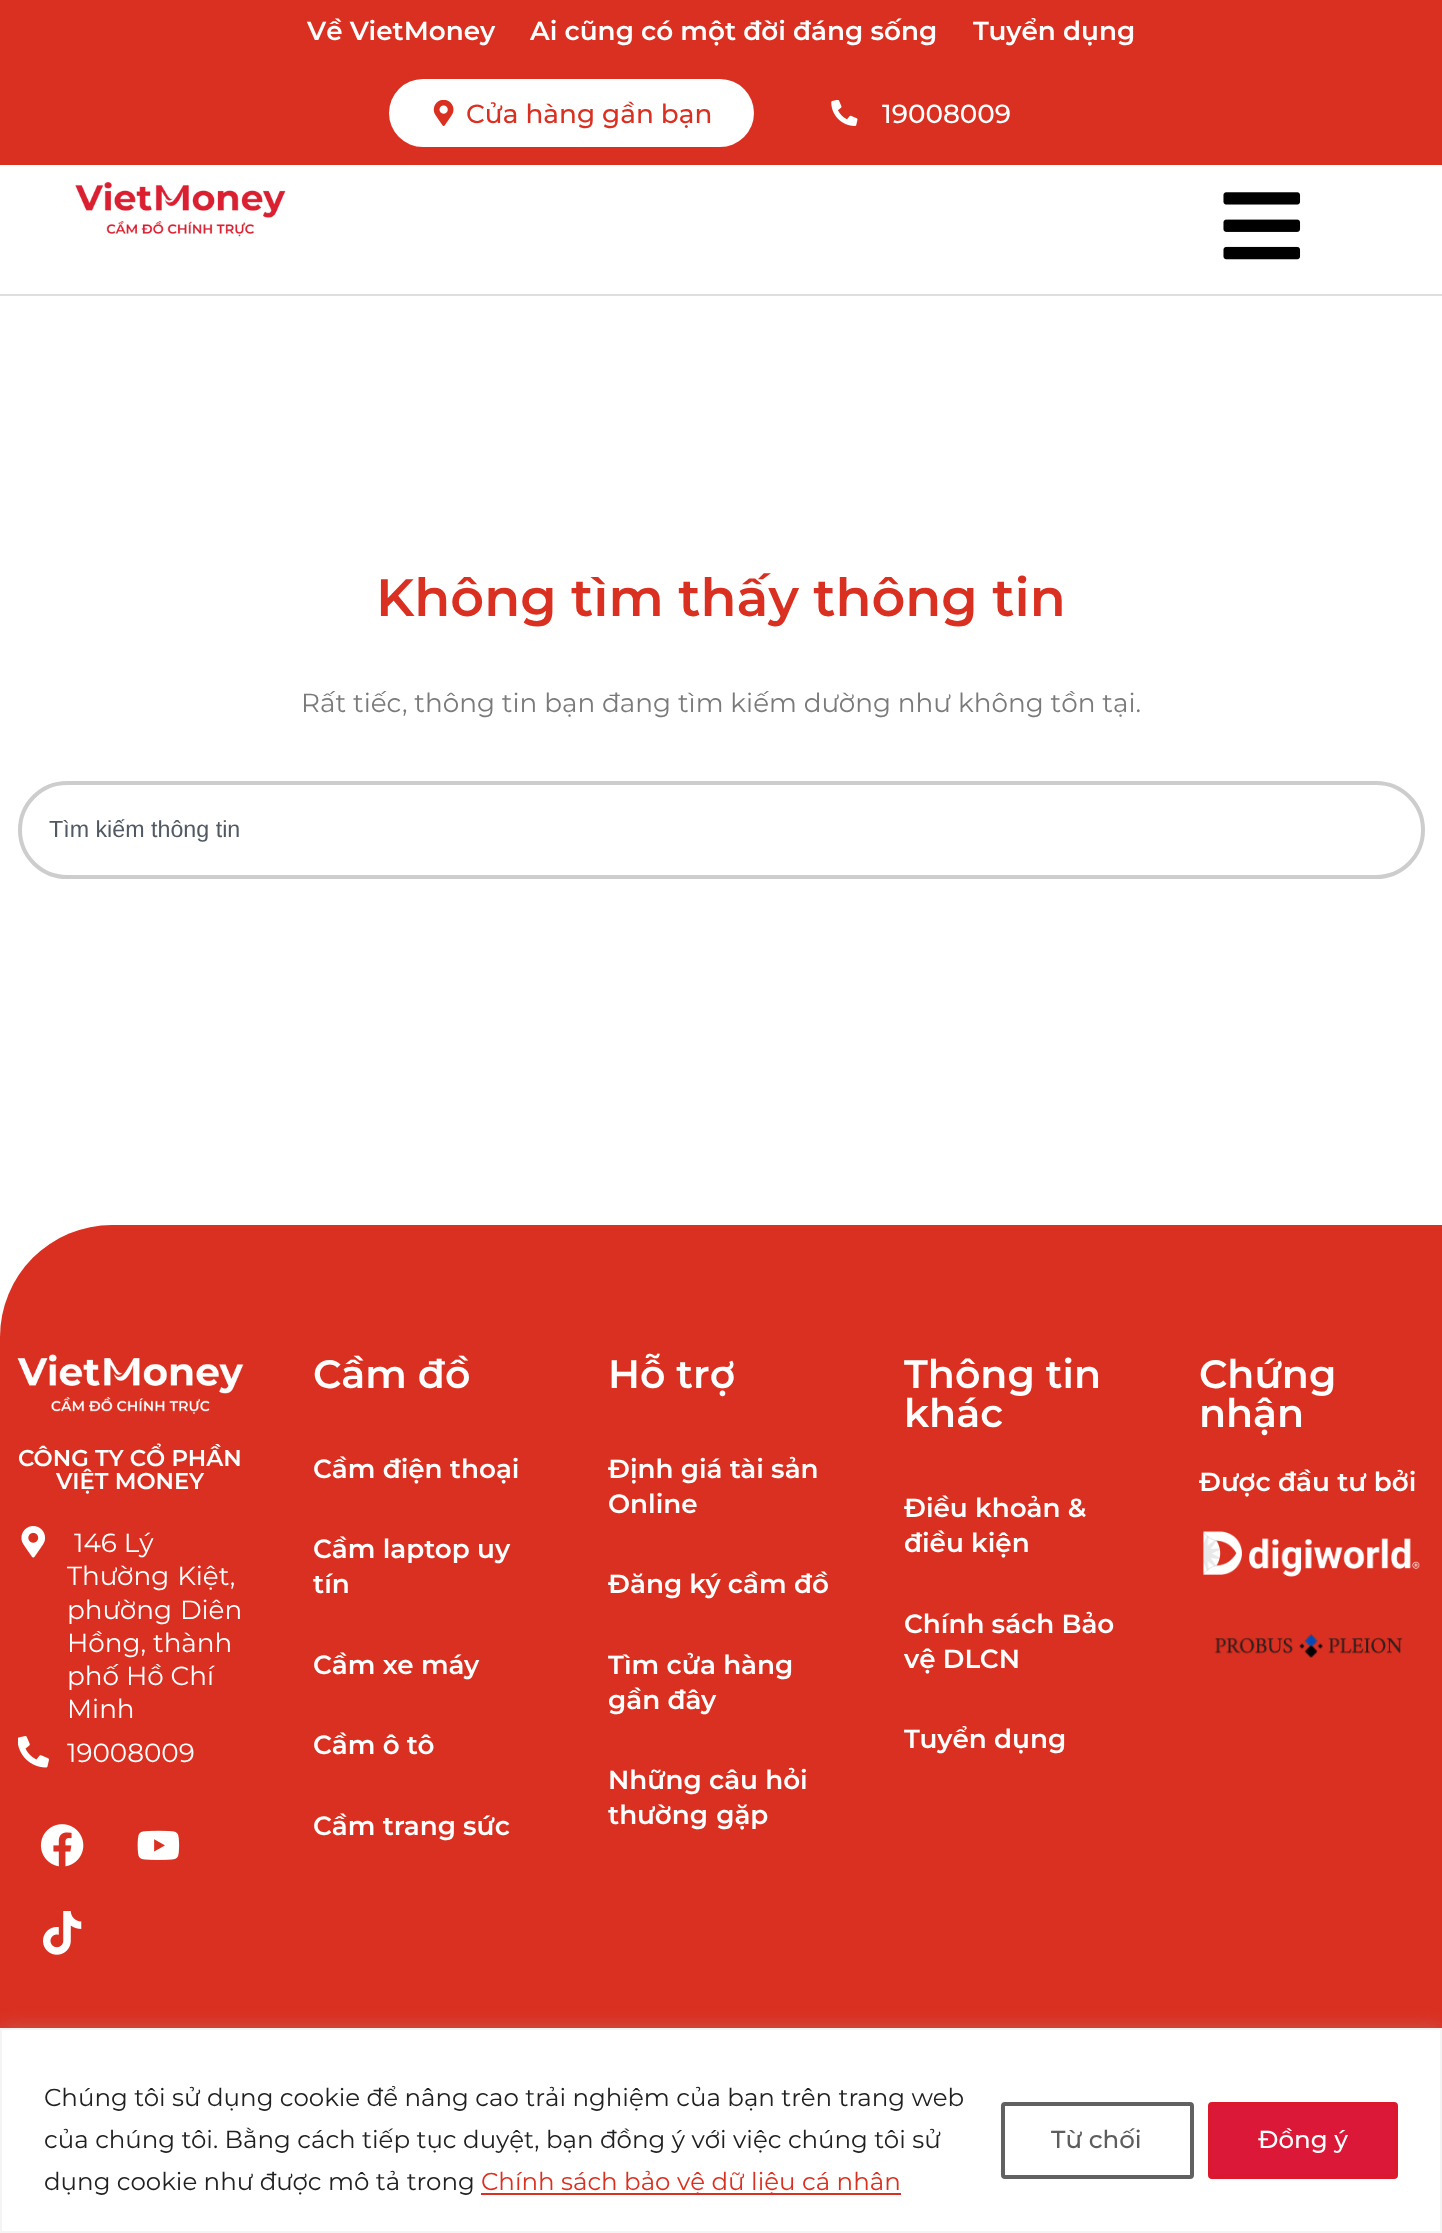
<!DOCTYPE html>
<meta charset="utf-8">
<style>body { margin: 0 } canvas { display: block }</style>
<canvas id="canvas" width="1442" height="2233"></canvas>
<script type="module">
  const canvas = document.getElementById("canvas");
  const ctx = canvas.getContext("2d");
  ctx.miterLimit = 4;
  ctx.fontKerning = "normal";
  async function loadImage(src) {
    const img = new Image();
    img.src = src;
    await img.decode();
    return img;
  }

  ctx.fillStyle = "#ffffff";
  ctx.fillRect(0, 0, 1442, 2233);
  ctx.fillStyle = "#da3021";
  ctx.fillRect(0, 0, 1442, 165);
  ctx.font = "600 26.25px Montserrat";
  ctx.fillStyle = "#ffffff";
  ctx.fillText("Về VietMoney", 307, 40);
  ctx.fillText("Ai cũng có một đời đáng sống", 530, 40);
  ctx.fillText("Tuyển dụng", 973, 40);
  ctx.beginPath();
  ctx.roundRect(389, 79, 365, 68, 34);
  ctx.fill();
  ctx.drawImage(await loadImage("img1.png"), 433, 100, 21, 26);
  ctx.font = "500 26.25px Montserrat";
  ctx.fillStyle = "#da3021";
  ctx.fillText("Cửa hàng gần bạn", 466, 123);
  ctx.drawImage(await loadImage("img2.png"), 831, 100, 27, 26);
  ctx.fillStyle = "#ffffff";
  ctx.fillText("19008009", 882, 123);
  ctx.fillStyle = "#dfdfdf";
  ctx.fillRect(0, 294, 1442, 2);
  ctx.drawImage(await loadImage("img3.png"), 75, 182, 211, 55);
  ctx.drawImage(await loadImage("img4.png"), 1223, 192, 78, 68);
  ctx.font = "600 52.5px Montserrat";
  ctx.fillStyle = "#da3021";
  ctx.fillText("Không tìm thấy thông tin", 376, 616);
  ctx.font = "26.25px Montserrat";
  ctx.fillStyle = "#7a7a7a";
  ctx.fillText("Rất tiếc, thông tin bạn đang tìm kiếm dường như không tồn tại.", 301, 712);
  ctx.beginPath();
  ctx.roundRect(20, 783, 1403, 94, 47);
  ctx.strokeStyle = "#cdcdcd";
  ctx.lineWidth = 4;
  ctx.stroke();
  ctx.font = "23.25px Liberation Sans";
  ctx.fillStyle = "#515962";
  ctx.fillText("Tìm kiếm thông tin", 49, 837);
  ctx.fillStyle = "#da3021";
  ctx.beginPath();
  ctx.roundRect(0, 1225, 1442, 826, [112, 0, 0, 0]);
  ctx.fill();
  ctx.font = "600 39.5px Montserrat";
  ctx.fillStyle = "#ffffff";
  ctx.fillText("Cầm đồ", 313, 1388);
  ctx.font = "600 26.25px Montserrat";
  ctx.fillText("Cầm điện thoại", 313, 1478);
  ctx.fillText("Cầm laptop uy", 313, 1558);
  ctx.fillText("tín", 313, 1593);
  ctx.fillText("Cầm xe máy", 313, 1674);
  ctx.fillText("Cầm ô tô", 313, 1754);
  ctx.fillText("Cầm trang sức", 313, 1835);
  ctx.font = "600 39.5px Montserrat";
  ctx.fillText("Hỗ trợ", 608, 1388);
  ctx.font = "600 26.25px Montserrat";
  ctx.fillText("Định giá tài sản", 608, 1478);
  ctx.fillText("Online", 608, 1513);
  ctx.fillText("Đăng ký cầm đồ", 608, 1593);
  ctx.fillText("Tìm cửa hàng", 608, 1674);
  ctx.fillText("gần đây", 608, 1709);
  ctx.fillText("Những câu hỏi", 608, 1789);
  ctx.wordSpacing = "1px";
  ctx.fillText("thường gặp", 608, 1824);
  ctx.wordSpacing = "0px";
  ctx.font = "600 39.5px Montserrat";
  ctx.fillText("Thông tin", 904, 1388);
  ctx.fillText("khác", 904, 1427);
  ctx.font = "600 26.25px Montserrat";
  ctx.fillText("Điều khoản &", 904, 1517);
  ctx.fillText("điều kiện", 904, 1552);
  ctx.fillText("Chính sách Bảo", 904, 1633);
  ctx.fillText("vệ DLCN", 904, 1668);
  ctx.fillText("Tuyển dụng", 904, 1748);
  ctx.font = "600 39.5px Montserrat";
  ctx.fillText("Chứng", 1199, 1388);
  ctx.fillText("nhận", 1199, 1427);
  ctx.font = "600 26.25px Montserrat";
  ctx.fillText("Được đầu tư bởi", 1199, 1491);
  ctx.drawImage(await loadImage("img5.png"), 1203, 1531, 217, 46);
  ctx.drawImage(await loadImage("img6.png"), 1214, 1634, 189, 24);
  ctx.drawImage(await loadImage("img7.png"), 17, 1354, 227, 60);
  ctx.font = "600 22.75px Montserrat";
  ctx.fillText("CÔNG TY CỔ PHẦN", 18, 1466);
  ctx.fillText("VIỆT MONEY", 56, 1489);
  ctx.drawImage(await loadImage("img8.png"), 21, 1526, 25, 32);
  ctx.font = "26.25px Montserrat";
  ctx.fillText("146 Lý", 74, 1552);
  ctx.wordSpacing = "1px";
  ctx.fillText("Thường Kiệt,", 67, 1585);
  ctx.fillText("phường Diên", 67, 1619);
  ctx.wordSpacing = "0px";
  ctx.fillText("Hồng, thành", 67, 1652);
  ctx.fillText("phố Hồ Chí", 67, 1685);
  ctx.fillText("Minh", 67, 1718);
  ctx.drawImage(await loadImage("img9.png"), 18, 1736, 31, 32);
  ctx.fillText("19008009", 67, 1762);
  ctx.drawImage(await loadImage("img10.png"), 40, 1824, 44, 43);
  ctx.drawImage(await loadImage("img11.png"), 137, 1830, 43, 30);
  ctx.drawImage(await loadImage("img12.png"), 43, 1911, 39, 44);
  ctx.fillStyle = "rgba(172, 171, 171, 0.3)";
  ctx.filter = "blur(9px)";
  ctx.beginPath();
  ctx.rect(0, 2027, 1442, 204);
  ctx.fill();
  ctx.filter = "none";
  ctx.fillStyle = "#ffffff";
  ctx.beginPath();
  ctx.rect(1, 2029, 1440, 203);
  ctx.fill();
  ctx.strokeStyle = "#f4f4f4";
  ctx.lineWidth = 2;
  ctx.stroke();
  ctx.font = "24.5px Montserrat";
  ctx.fillStyle = "#212121";
  ctx.fillText("Chúng tôi sử dụng cookie để nâng cao trải nghiệm của bạn trên trang web", 44, 2106);
  ctx.fillText("của chúng tôi. Bằng cách tiếp tục duyệt, bạn đồng ý với việc chúng tôi sử", 44, 2148);
  ctx.fillText("dụng cookie như được mô tả trong", 44, 2190);
  ctx.fillStyle = "#da3021";
  ctx.fillRect(481, 2193, 420, 2);
  ctx.fillText("Chính sách bảo vệ dữ liệu cá nhân", 481, 2190);
  ctx.beginPath();
  ctx.roundRect(1003, 2104, 189, 73, 2);
  ctx.strokeStyle = "#616161";
  ctx.lineWidth = 4;
  ctx.stroke();
  ctx.font = "500 24.5px Montserrat";
  ctx.fillStyle = "#5d5d5d";
  ctx.fillText("Từ chối", 1051, 2148);
  ctx.fillStyle = "#dc1838";
  ctx.beginPath();
  ctx.roundRect(1210, 2104, 186, 73, 2);
  ctx.fill();
  ctx.strokeStyle = "#dc182e";
  ctx.stroke();
  ctx.fillStyle = "#ffffff";
  ctx.fillText("Đồng ý", 1258, 2148);
</script>
